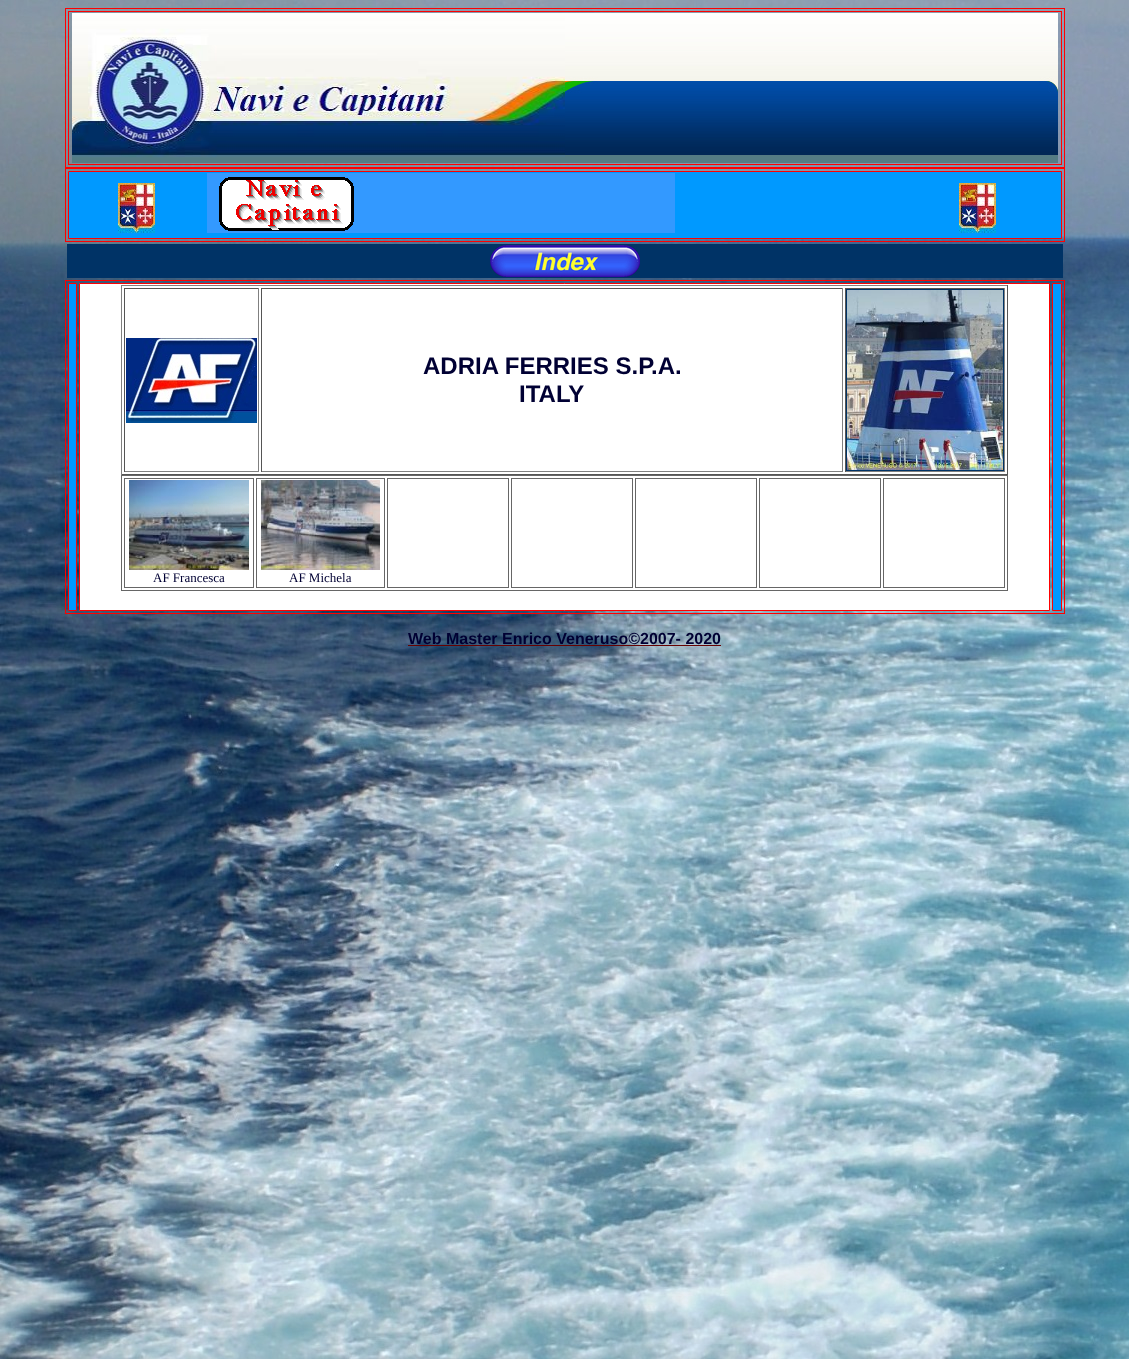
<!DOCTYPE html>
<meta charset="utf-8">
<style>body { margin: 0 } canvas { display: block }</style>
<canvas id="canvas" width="1129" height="1359"></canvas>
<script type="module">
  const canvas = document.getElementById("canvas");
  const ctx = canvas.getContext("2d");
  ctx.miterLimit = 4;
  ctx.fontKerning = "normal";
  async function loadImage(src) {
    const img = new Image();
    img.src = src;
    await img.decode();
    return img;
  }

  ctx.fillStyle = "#ffffff";
  ctx.fillRect(0, 0, 1129, 1359);
  ctx.drawImage(await loadImage("img1.png"), 0, 0, 1129, 1359);
  ctx.strokeStyle = "#ff0000";
  ctx.strokeRect(65.5, 8.5, 999, 159);
  ctx.strokeRect(68.5, 11.5, 993, 153);
  ctx.drawImage(await loadImage("img2.png"), 72, 13, 493, 150);
  ctx.drawImage(await loadImage("img3.png"), 565, 13, 493, 150);
  ctx.strokeRect(65.5, 168.5, 999, 73);
  ctx.fillStyle = "#0099ff";
  ctx.beginPath();
  ctx.rect(68.5, 171.5, 993, 67);
  ctx.fill();
  ctx.stroke();
  ctx.drawImage(await loadImage("img4.png"), 118, 183, 37, 50);
  ctx.drawImage(await loadImage("img5.png"), 207, 173, 468, 60);
  ctx.drawImage(await loadImage("img4.png"), 959, 183, 37, 50);
  ctx.fillStyle = "#003366";
  ctx.fillRect(67, 244, 996, 34);
  ctx.drawImage(await loadImage("img6.png"), 490, 245, 150, 32);
  ctx.strokeRect(65.5, 280.5, 999, 333);
  ctx.fillStyle = "#0099ff";
  ctx.beginPath();
  ctx.rect(68.5, 283.5, 8, 327);
  ctx.fill();
  ctx.stroke();
  ctx.fillStyle = "#ffffff";
  ctx.beginPath();
  ctx.rect(79.5, 283.5, 970, 327);
  ctx.fill();
  ctx.stroke();
  ctx.fillStyle = "#808080";
  ctx.fillRect(121, 285, 887, 1);
  ctx.fillStyle = "#555555";
  ctx.fillRect(1007, 285, 1, 190);
  ctx.fillRect(121, 474, 887, 1);
  ctx.fillStyle = "#808080";
  ctx.fillRect(121, 285, 1, 190);
  ctx.fillStyle = "#555555";
  ctx.fillRect(124, 288, 135, 1);
  ctx.fillStyle = "#808080";
  ctx.fillRect(258, 288, 1, 184);
  ctx.fillRect(124, 471, 135, 1);
  ctx.fillStyle = "#555555";
  ctx.fillRect(124, 288, 1, 184);
  ctx.drawImage(await loadImage("img7.png"), 126, 338, 131, 85);
  ctx.fillRect(261, 288, 582, 1);
  ctx.fillStyle = "#808080";
  ctx.fillRect(842, 288, 1, 184);
  ctx.fillRect(261, 471, 582, 1);
  ctx.fillStyle = "#555555";
  ctx.fillRect(261, 288, 1, 184);
  ctx.font = "bold 24px Liberation Sans";
  ctx.fillStyle = "#000033";
  ctx.fillText("ADRIA FERRIES S.P.A.", 423, 374);
  ctx.fillText("ITALY", 519, 402);
  ctx.fillStyle = "#003366";
  ctx.fillRect(846, 289, 158, 182);
  ctx.fillStyle = "#555555";
  ctx.fillRect(845, 288, 160, 1);
  ctx.fillStyle = "#808080";
  ctx.fillRect(1004, 288, 1, 184);
  ctx.fillRect(845, 471, 160, 1);
  ctx.fillStyle = "#555555";
  ctx.fillRect(845, 288, 1, 184);
  ctx.drawImage(await loadImage("img8.png"), 847, 290, 156, 180);
  ctx.strokeStyle = "#666666";
  ctx.strokeRect(121.5, 475.5, 886, 115);
  ctx.strokeRect(124.5, 478.5, 129, 109);
  ctx.drawImage(await loadImage("img9.png"), 129, 480, 120, 90);
  ctx.font = "13px Liberation Serif";
  ctx.fillStyle = "#000033";
  ctx.fillText("AF Francesca", 153, 582);
  ctx.strokeRect(256.5, 478.5, 128, 109);
  ctx.drawImage(await loadImage("img10.png"), 261, 480, 119, 90);
  ctx.fillText("AF Michela", 289, 582);
  ctx.strokeRect(387.5, 478.5, 121, 109);
  ctx.strokeRect(511.5, 478.5, 121, 109);
  ctx.strokeRect(635.5, 478.5, 121, 109);
  ctx.strokeRect(759.5, 478.5, 121, 109);
  ctx.strokeRect(883.5, 478.5, 121, 109);
  ctx.fillStyle = "#0099ff";
  ctx.beginPath();
  ctx.rect(1052.5, 283.5, 9, 327);
  ctx.fill();
  ctx.strokeStyle = "#ff0000";
  ctx.stroke();
  ctx.font = "bold 16px Liberation Sans";
  ctx.fillStyle = "#000033";
  ctx.fillText("Web Master Enrico Veneruso©2007- 2020", 408, 644);
  ctx.fillStyle = "#660000";
  ctx.fillRect(408, 645, 313, 1);
</script>
